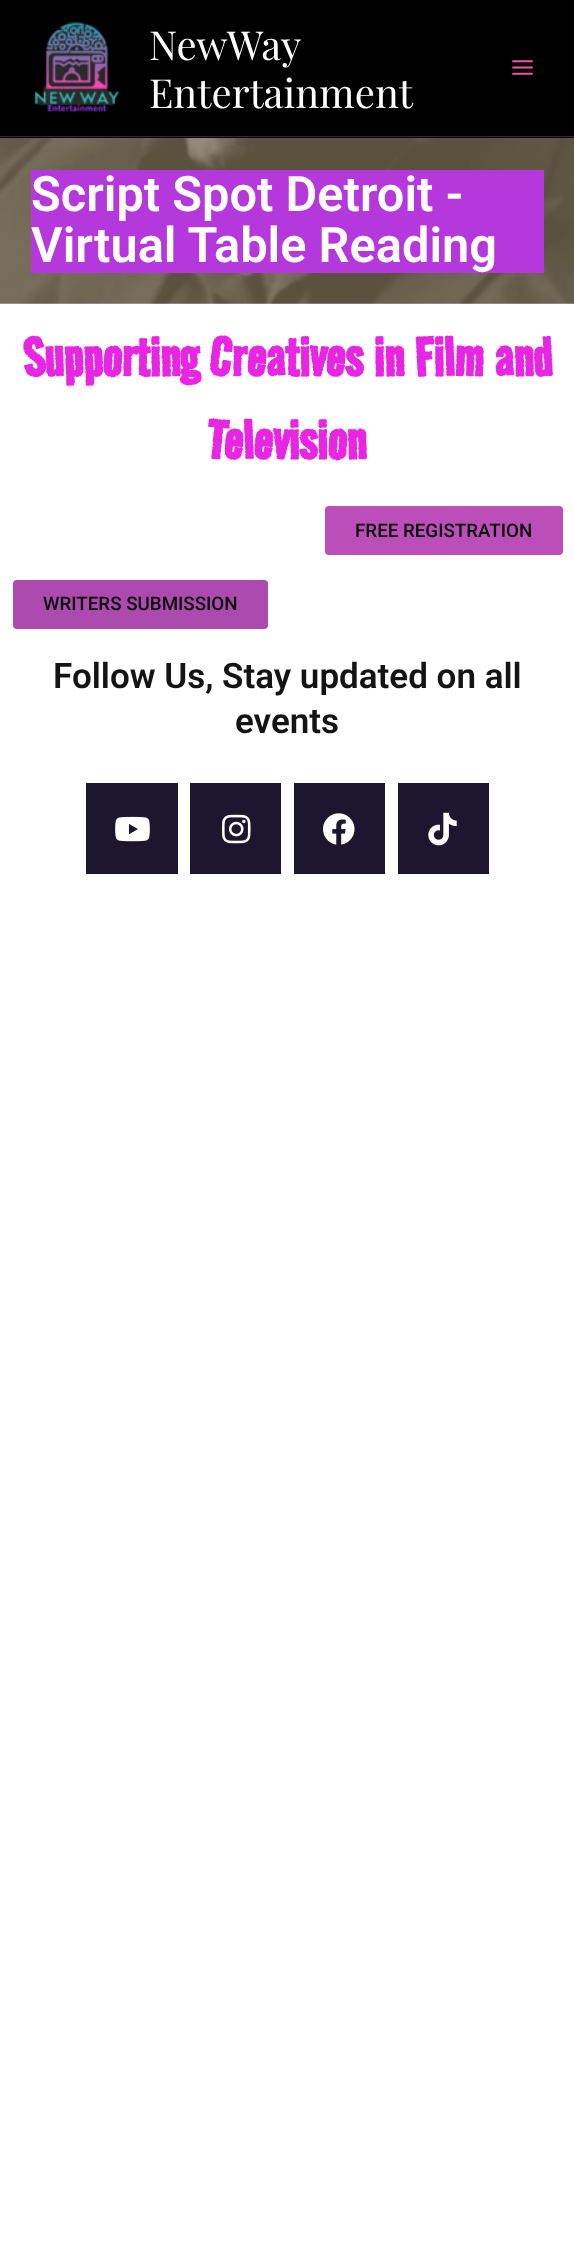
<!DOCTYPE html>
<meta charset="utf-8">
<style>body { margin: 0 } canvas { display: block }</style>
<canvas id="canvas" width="574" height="2252"></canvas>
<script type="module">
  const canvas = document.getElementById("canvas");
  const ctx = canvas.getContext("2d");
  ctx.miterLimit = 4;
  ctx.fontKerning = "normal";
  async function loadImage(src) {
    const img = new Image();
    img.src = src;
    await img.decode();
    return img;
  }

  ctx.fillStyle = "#ffffff";
  ctx.fillRect(0, 0, 574, 2252);
  ctx.fillStyle = "#000000";
  ctx.fillRect(0, 0, 574, 138);
  ctx.fillStyle = "#491555";
  ctx.fillRect(0, 136, 574, 1);
  ctx.drawImage(await loadImage("img1.png"), 34, 22, 86, 91);
  ctx.font = "40px Playfair Display";
  ctx.fillStyle = "#ffffff";
  ctx.fillText("NewWay", 149, 60);
  ctx.fillText("Entertainment", 149, 108);
  ctx.drawImage(await loadImage("img2.png"), 512, 60, 21, 15);
  ctx.drawImage(await loadImage("img3.png"), 0, 138, 574, 166);
  ctx.fillStyle = "#b438db";
  ctx.fillRect(31, 170, 513, 103);
  ctx.font = "600 48.75px Roboto";
  ctx.fillStyle = "#ffffff";
  ctx.fillText("Script Spot Detroit -", 31, 211);
  ctx.fillText("Virtual Table Reading", 31, 262);
  ctx.font = "bold 63.75px Road Rage";
  ctx.fillStyle = "#e725e3";
  ctx.fillText("Supporting Creatives in Film and", 23, 376);
  ctx.fillText("Television", 208, 459);
  ctx.fillStyle = "#bb4eb9";
  ctx.beginPath();
  ctx.roundRect(325, 506, 238, 49, 4);
  ctx.fill();
  ctx.font = "500 18.75px Roboto";
  ctx.fillStyle = "#070707";
  ctx.fillText("FREE REGISTRATION", 355, 537);
  ctx.fillStyle = "#ac4aaf";
  ctx.beginPath();
  ctx.roundRect(13, 580, 255, 49, 4);
  ctx.fill();
  ctx.fillStyle = "#070707";
  ctx.fillText("WRITERS SUBMISSION", 43, 610);
  ctx.font = "600 35px Roboto";
  ctx.fillStyle = "#141414";
  ctx.fillText("Follow Us, Stay updated on all", 53, 688);
  ctx.fillText("events", 235, 733);
  ctx.fillStyle = "#1c172e";
  ctx.fillRect(86, 783, 92, 91);
  ctx.drawImage(await loadImage("img4.png"), 115, 816, 35, 26);
  ctx.fillRect(190, 783, 91, 91);
  ctx.drawImage(await loadImage("img5.png"), 222, 814, 29, 30);
  ctx.fillRect(294, 783, 91, 91);
  ctx.drawImage(await loadImage("img6.png"), 323, 813, 32, 32);
  ctx.fillRect(398, 783, 91, 91);
  ctx.drawImage(await loadImage("img7.png"), 428, 812, 29, 34);
</script>
